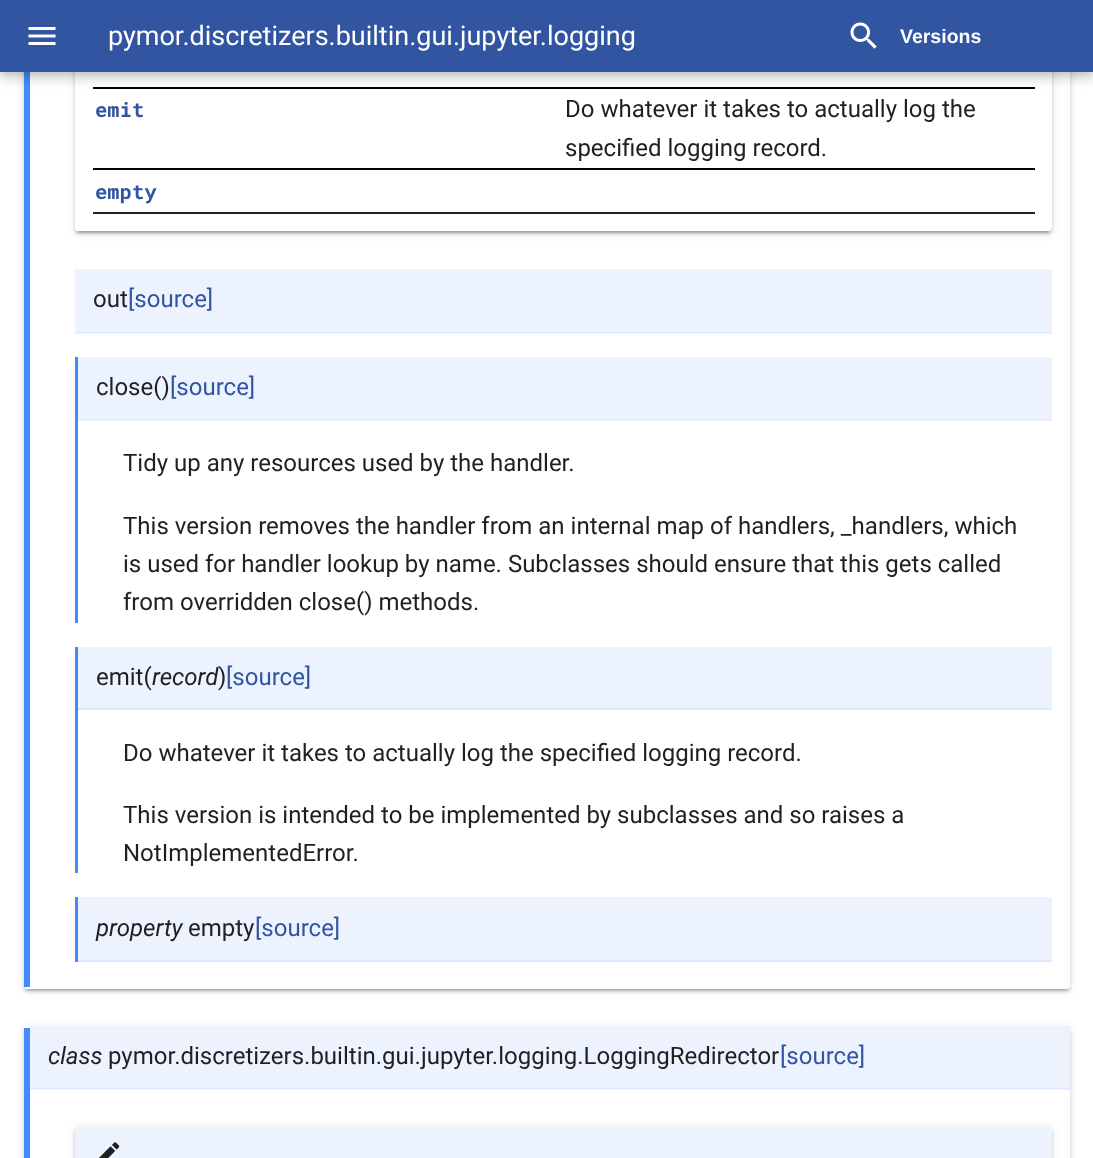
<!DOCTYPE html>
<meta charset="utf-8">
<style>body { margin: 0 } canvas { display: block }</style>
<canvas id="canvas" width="1093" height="1158"></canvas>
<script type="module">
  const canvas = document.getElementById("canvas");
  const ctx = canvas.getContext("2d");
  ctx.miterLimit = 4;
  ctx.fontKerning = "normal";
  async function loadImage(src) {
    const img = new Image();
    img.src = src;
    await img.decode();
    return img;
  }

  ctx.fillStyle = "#ffffff";
  ctx.fillRect(0, 0, 1093, 1158);
  ctx.fillStyle = "#ecf3ff";
  ctx.fillRect(78, 420, 974, 1);
  ctx.fillRect(75, 333, 977, 1);
  ctx.save();
  ctx.beginPath();
  ctx.moveTo(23, 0);
  ctx.lineTo(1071, 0);
  ctx.lineTo(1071, 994);
  ctx.lineTo(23, 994);
  ctx.closePath();
  ctx.moveTo(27, -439);
  ctx.lineTo(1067, -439);
  ctx.bezierCurveTo(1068.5, -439, 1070, -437.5, 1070, -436);
  ctx.lineTo(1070, 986);
  ctx.bezierCurveTo(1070, 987.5, 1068.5, 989, 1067, 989);
  ctx.lineTo(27, 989);
  ctx.bezierCurveTo(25.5, 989, 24, 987.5, 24, 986);
  ctx.lineTo(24, -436);
  ctx.bezierCurveTo(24, -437.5, 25.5, -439, 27, -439);
  ctx.closePath();
  ctx.clip("evenodd");
  ctx.fillStyle = "rgba(0, 0, 0, 0.2)";
  ctx.filter = "blur(1px)";
  ctx.beginPath();
  ctx.rect(27, -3, 1040, 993);
  ctx.fill();
  ctx.filter = "none";
  ctx.restore();
  ctx.save();
  ctx.beginPath();
  ctx.moveTo(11, 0);
  ctx.lineTo(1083, 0);
  ctx.lineTo(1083, 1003);
  ctx.lineTo(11, 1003);
  ctx.closePath();
  ctx.moveTo(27, -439);
  ctx.lineTo(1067, -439);
  ctx.bezierCurveTo(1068.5, -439, 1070, -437.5, 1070, -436);
  ctx.lineTo(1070, 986);
  ctx.bezierCurveTo(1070, 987.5, 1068.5, 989, 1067, 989);
  ctx.lineTo(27, 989);
  ctx.bezierCurveTo(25.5, 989, 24, 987.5, 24, 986);
  ctx.lineTo(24, -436);
  ctx.bezierCurveTo(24, -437.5, 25.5, -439, 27, -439);
  ctx.closePath();
  ctx.clip("evenodd");
  ctx.fillStyle = "rgba(0, 0, 0, 0.12)";
  ctx.filter = "blur(4px)";
  ctx.beginPath();
  ctx.roundRect(24, -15, 1046, 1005, 3);
  ctx.fill();
  ctx.filter = "none";
  ctx.restore();
  ctx.save();
  ctx.beginPath();
  ctx.moveTo(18, 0);
  ctx.lineTo(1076, 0);
  ctx.lineTo(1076, 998);
  ctx.lineTo(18, 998);
  ctx.closePath();
  ctx.moveTo(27, -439);
  ctx.lineTo(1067, -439);
  ctx.bezierCurveTo(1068.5, -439, 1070, -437.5, 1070, -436);
  ctx.lineTo(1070, 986);
  ctx.bezierCurveTo(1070, 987.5, 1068.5, 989, 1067, 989);
  ctx.lineTo(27, 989);
  ctx.bezierCurveTo(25.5, 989, 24, 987.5, 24, 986);
  ctx.lineTo(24, -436);
  ctx.bezierCurveTo(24, -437.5, 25.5, -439, 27, -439);
  ctx.closePath();
  ctx.clip("evenodd");
  ctx.fillStyle = "rgba(0, 0, 0, 0.14)";
  ctx.filter = "blur(1.5px)";
  ctx.beginPath();
  ctx.roundRect(24, -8, 1046, 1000, 3);
  ctx.fill();
  ctx.filter = "none";
  ctx.restore();
  ctx.fillStyle = "#448aff";
  ctx.fillRect(24, 72, 6, 915);
  ctx.save();
  ctx.beginPath();
  ctx.rect(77, 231, 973, 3);
  ctx.clip();
  ctx.fillStyle = "rgba(0, 0, 0, 0.2)";
  ctx.filter = "blur(1px)";
  ctx.beginPath();
  ctx.rect(78, -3, 971, 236);
  ctx.fill();
  ctx.filter = "none";
  ctx.restore();
  ctx.save();
  ctx.beginPath();
  ctx.moveTo(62, 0);
  ctx.lineTo(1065, 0);
  ctx.lineTo(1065, 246);
  ctx.lineTo(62, 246);
  ctx.closePath();
  ctx.moveTo(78, -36);
  ctx.lineTo(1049, -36);
  ctx.bezierCurveTo(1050.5, -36, 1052, -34.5, 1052, -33);
  ctx.lineTo(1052, 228);
  ctx.bezierCurveTo(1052, 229.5, 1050.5, 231, 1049, 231);
  ctx.lineTo(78, 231);
  ctx.bezierCurveTo(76.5, 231, 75, 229.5, 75, 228);
  ctx.lineTo(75, -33);
  ctx.bezierCurveTo(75, -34.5, 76.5, -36, 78, -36);
  ctx.closePath();
  ctx.clip("evenodd");
  ctx.fillStyle = "rgba(0, 0, 0, 0.12)";
  ctx.filter = "blur(4px)";
  ctx.beginPath();
  ctx.roundRect(75, -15, 977, 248, 3);
  ctx.fill();
  ctx.filter = "none";
  ctx.restore();
  ctx.save();
  ctx.beginPath();
  ctx.moveTo(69, 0);
  ctx.lineTo(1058, 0);
  ctx.lineTo(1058, 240);
  ctx.lineTo(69, 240);
  ctx.closePath();
  ctx.moveTo(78, -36);
  ctx.lineTo(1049, -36);
  ctx.bezierCurveTo(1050.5, -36, 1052, -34.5, 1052, -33);
  ctx.lineTo(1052, 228);
  ctx.bezierCurveTo(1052, 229.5, 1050.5, 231, 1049, 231);
  ctx.lineTo(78, 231);
  ctx.bezierCurveTo(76.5, 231, 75, 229.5, 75, 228);
  ctx.lineTo(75, -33);
  ctx.bezierCurveTo(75, -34.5, 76.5, -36, 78, -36);
  ctx.closePath();
  ctx.clip("evenodd");
  ctx.fillStyle = "rgba(0, 0, 0, 0.14)";
  ctx.filter = "blur(1.5px)";
  ctx.beginPath();
  ctx.roundRect(75, -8, 977, 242, 3);
  ctx.fill();
  ctx.filter = "none";
  ctx.restore();
  ctx.fillStyle = "#040404";
  ctx.fillRect(93, 87, 942, 2);
  ctx.fillStyle = "rgba(0, 0, 0, 0.2)";
  ctx.filter = "blur(6px)";
  ctx.beginPath();
  ctx.rect(0, 6, 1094, 72);
  ctx.fill();
  ctx.filter = "none";
  ctx.fillStyle = "rgba(0, 0, 0, 0.1)";
  ctx.filter = "blur(3px)";
  ctx.beginPath();
  ctx.rect(0, 0, 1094, 72);
  ctx.fill();
  ctx.filter = "none";
  ctx.fillStyle = "#3155a0";
  ctx.fillRect(0, 0, 1093, 72);
  ctx.drawImage(await loadImage("img1.png"), 28, 27, 28, 18);
  ctx.font = "27px Roboto";
  ctx.fillStyle = "#ffffff";
  ctx.fillText("pymor.discretizers.builtin.gui.jupyter.logging", 108, 45);
  ctx.drawImage(await loadImage("img2.png"), 850, 22, 27, 27);
  ctx.font = "bold 19.5px Liberation Sans";
  ctx.fillText("Versions", 900, 43);
  ctx.fillStyle = "#040404";
  ctx.fillRect(93, 168, 942, 2);
  ctx.font = "bold 20.5px Roboto Mono";
  ctx.fillStyle = "#3155a0";
  ctx.fillText("emit", 95, 117);
  ctx.font = "24px Roboto";
  ctx.fillStyle = "#1f2021";
  ctx.fillText("Do whatever it takes to actually log the", 565, 117);
  ctx.fillText("specified logging record.", 565, 156);
  ctx.fillStyle = "#212121";
  ctx.fillRect(93, 212, 942, 2);
  ctx.font = "bold 20.5px Roboto Mono";
  ctx.fillStyle = "#3155a0";
  ctx.fillText("empty", 95, 199);
  ctx.fillStyle = "#ecf3ff";
  ctx.fillRect(75, 269, 977, 63);
  ctx.fillStyle = "#dbe9ff";
  ctx.fillRect(75, 332, 977, 1);
  ctx.font = "24px Roboto";
  ctx.fillStyle = "#1f2021";
  ctx.fillText("out", 93, 307);
  ctx.fillStyle = "#3155a0";
  ctx.fillText("[source]", 128, 307);
  ctx.fillStyle = "#448aff";
  ctx.fillRect(75, 357, 3, 266);
  ctx.fillStyle = "#ecf3ff";
  ctx.fillRect(78, 357, 974, 62);
  ctx.fillStyle = "#dbe9ff";
  ctx.fillRect(78, 419, 974, 1);
  ctx.fillStyle = "#1f2021";
  ctx.fillText("close()", 96, 395);
  ctx.fillStyle = "#3155a0";
  ctx.fillText("[source]", 170, 395);
  ctx.fillStyle = "#1f2021";
  ctx.fillText("Tidy up any resources used by the handler.", 123, 471);
  ctx.fillText("This version removes the handler from an internal map of handlers, _handlers, which", 123, 534);
  ctx.fillText("is used for handler lookup by name. Subclasses should ensure that this gets called", 123, 572);
  ctx.fillText("from overridden close() methods.", 123, 610);
  ctx.fillStyle = "#448aff";
  ctx.fillRect(75, 647, 3, 226);
  ctx.fillStyle = "#ecf3ff";
  ctx.fillRect(78, 647, 974, 61);
  ctx.fillStyle = "#dbe9ff";
  ctx.fillRect(78, 708, 974, 2);
  ctx.fillStyle = "#1f2021";
  ctx.fillText("emit(", 96, 685);
  ctx.font = "italic 24px Roboto";
  ctx.fillText("record", 152, 685);
  ctx.font = "24px Roboto";
  ctx.fillText(")", 218, 685);
  ctx.fillStyle = "#3155a0";
  ctx.fillText("[source]", 226, 685);
  ctx.fillStyle = "#1f2021";
  ctx.fillText("Do whatever it takes to actually log the specified logging record.", 123, 761);
  ctx.fillText("This version is intended to be implemented by subclasses and so raises a", 123, 823);
  ctx.fillText("NotImplementedError.", 123, 861);
  ctx.fillStyle = "#448aff";
  ctx.fillRect(75, 897, 3, 65);
  ctx.fillStyle = "#ecf3ff";
  ctx.fillRect(78, 897, 974, 63);
  ctx.fillStyle = "#dbe9ff";
  ctx.fillRect(78, 960, 974, 2);
  ctx.font = "italic 24px Roboto";
  ctx.fillStyle = "#1f2021";
  ctx.fillText("property", 96, 936);
  ctx.font = "24px Roboto";
  ctx.fillText("empty", 188, 936);
  ctx.fillStyle = "#3155a0";
  ctx.fillText("[source]", 255, 936);
  ctx.save();
  ctx.beginPath();
  ctx.moveTo(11, 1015);
  ctx.lineTo(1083, 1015);
  ctx.lineTo(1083, 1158);
  ctx.lineTo(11, 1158);
  ctx.closePath();
  ctx.moveTo(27, 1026);
  ctx.lineTo(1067, 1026);
  ctx.bezierCurveTo(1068.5, 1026, 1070, 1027.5, 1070, 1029);
  ctx.lineTo(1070, 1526);
  ctx.bezierCurveTo(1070, 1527.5, 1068.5, 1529, 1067, 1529);
  ctx.lineTo(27, 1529);
  ctx.bezierCurveTo(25.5, 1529, 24, 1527.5, 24, 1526);
  ctx.lineTo(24, 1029);
  ctx.bezierCurveTo(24, 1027.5, 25.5, 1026, 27, 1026);
  ctx.closePath();
  ctx.clip("evenodd");
  ctx.fillStyle = "rgba(0, 0, 0, 0.12)";
  ctx.filter = "blur(4px)";
  ctx.beginPath();
  ctx.roundRect(24, 1028, 1046, 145, 3);
  ctx.fill();
  ctx.filter = "none";
  ctx.restore();
  ctx.save();
  ctx.beginPath();
  ctx.moveTo(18, 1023);
  ctx.lineTo(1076, 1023);
  ctx.lineTo(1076, 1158);
  ctx.lineTo(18, 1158);
  ctx.closePath();
  ctx.moveTo(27, 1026);
  ctx.lineTo(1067, 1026);
  ctx.bezierCurveTo(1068.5, 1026, 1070, 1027.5, 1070, 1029);
  ctx.lineTo(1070, 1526);
  ctx.bezierCurveTo(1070, 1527.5, 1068.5, 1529, 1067, 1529);
  ctx.lineTo(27, 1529);
  ctx.bezierCurveTo(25.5, 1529, 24, 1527.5, 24, 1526);
  ctx.lineTo(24, 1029);
  ctx.bezierCurveTo(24, 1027.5, 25.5, 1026, 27, 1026);
  ctx.closePath();
  ctx.clip("evenodd");
  ctx.fillStyle = "rgba(0, 0, 0, 0.14)";
  ctx.filter = "blur(1.5px)";
  ctx.beginPath();
  ctx.roundRect(24, 1029, 1046, 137, 3);
  ctx.fill();
  ctx.filter = "none";
  ctx.restore();
  ctx.fillStyle = "#448aff";
  ctx.fillRect(24, 1028, 6, 130);
  ctx.fillStyle = "rgba(68, 138, 255, 0.1)";
  ctx.fillRect(30, 1026, 1040, 63);
  ctx.fillRect(30, 1088, 1040, 2);
  ctx.font = "italic 24px Roboto";
  ctx.fillStyle = "#1f2021";
  ctx.fillText("class", 48, 1064);
  ctx.font = "24px Roboto";
  ctx.fillText("pymor.discretizers.builtin.gui.jupyter.logging.LoggingRedirector", 108, 1064);
  ctx.fillStyle = "#3155a0";
  ctx.fillText("[source]", 780, 1064);
  ctx.save();
  ctx.beginPath();
  ctx.moveTo(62, 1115);
  ctx.lineTo(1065, 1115);
  ctx.lineTo(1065, 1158);
  ctx.lineTo(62, 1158);
  ctx.closePath();
  ctx.moveTo(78, 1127);
  ctx.lineTo(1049, 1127);
  ctx.bezierCurveTo(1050.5, 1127, 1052, 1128.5, 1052, 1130);
  ctx.lineTo(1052, 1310);
  ctx.bezierCurveTo(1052, 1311.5, 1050.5, 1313, 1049, 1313);
  ctx.lineTo(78, 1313);
  ctx.bezierCurveTo(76.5, 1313, 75, 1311.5, 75, 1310);
  ctx.lineTo(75, 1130);
  ctx.bezierCurveTo(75, 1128.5, 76.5, 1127, 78, 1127);
  ctx.closePath();
  ctx.clip("evenodd");
  ctx.fillStyle = "rgba(0, 0, 0, 0.12)";
  ctx.filter = "blur(4px)";
  ctx.beginPath();
  ctx.roundRect(75, 1128, 977, 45, 3);
  ctx.fill();
  ctx.filter = "none";
  ctx.restore();
  ctx.save();
  ctx.beginPath();
  ctx.moveTo(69, 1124);
  ctx.lineTo(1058, 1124);
  ctx.lineTo(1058, 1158);
  ctx.lineTo(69, 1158);
  ctx.closePath();
  ctx.moveTo(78, 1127);
  ctx.lineTo(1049, 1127);
  ctx.bezierCurveTo(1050.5, 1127, 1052, 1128.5, 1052, 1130);
  ctx.lineTo(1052, 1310);
  ctx.bezierCurveTo(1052, 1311.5, 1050.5, 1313, 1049, 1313);
  ctx.lineTo(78, 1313);
  ctx.bezierCurveTo(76.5, 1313, 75, 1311.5, 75, 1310);
  ctx.lineTo(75, 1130);
  ctx.bezierCurveTo(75, 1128.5, 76.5, 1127, 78, 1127);
  ctx.closePath();
  ctx.clip("evenodd");
  ctx.fillStyle = "rgba(0, 0, 0, 0.14)";
  ctx.filter = "blur(1.5px)";
  ctx.beginPath();
  ctx.roundRect(75, 1130, 977, 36, 3);
  ctx.fill();
  ctx.filter = "none";
  ctx.restore();
  ctx.fillStyle = "rgba(68, 138, 255, 0.1)";
  ctx.beginPath();
  ctx.moveTo(78, 1127);
  ctx.lineTo(1049, 1127);
  ctx.bezierCurveTo(1050.5, 1127, 1052, 1128.5, 1052, 1130);
  ctx.lineTo(1052, 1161);
  ctx.lineTo(75, 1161);
  ctx.lineTo(75, 1130);
  ctx.bezierCurveTo(75, 1128.5, 76.5, 1127, 78, 1127);
  ctx.closePath();
  ctx.fill();
  ctx.drawImage(await loadImage("img3.png"), 99, 1142, 21, 16);
</script>
